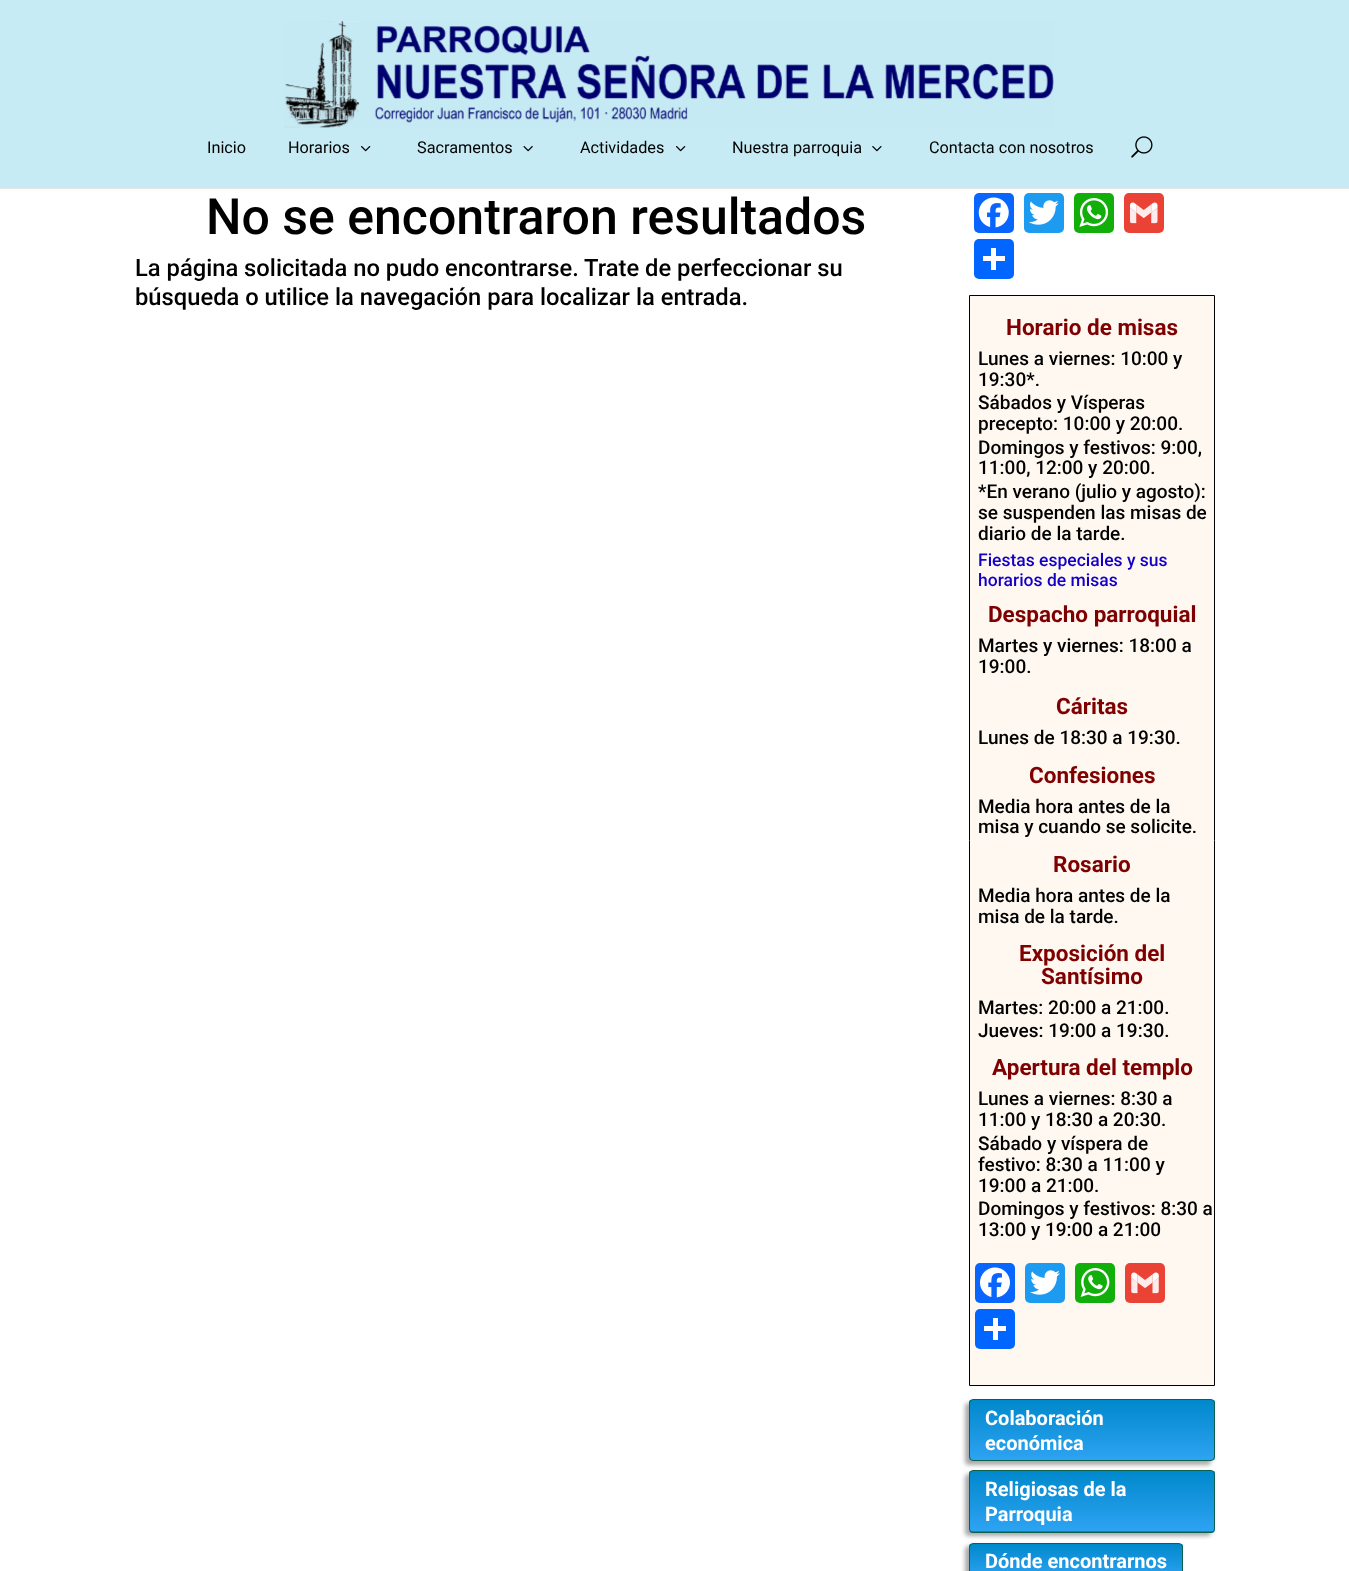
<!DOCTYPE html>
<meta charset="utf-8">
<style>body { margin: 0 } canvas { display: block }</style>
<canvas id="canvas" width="1349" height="1571"></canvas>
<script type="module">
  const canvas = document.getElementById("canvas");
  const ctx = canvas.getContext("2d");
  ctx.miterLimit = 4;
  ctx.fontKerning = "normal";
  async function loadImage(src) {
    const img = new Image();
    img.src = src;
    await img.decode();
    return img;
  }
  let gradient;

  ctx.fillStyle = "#ffffff";
  ctx.fillRect(0, 0, 1349, 1571);
  ctx.fillStyle = "#e6e6e6";
  ctx.fillRect(0, 188, 1349, 1);
  ctx.fillStyle = "#c6ebf4";
  ctx.fillRect(0, 0, 1349, 188);
  ctx.drawImage(await loadImage("img1.png"), 284, 21, 770, 107);
  ctx.font = "16.25px Roboto";
  ctx.fillStyle = "#000000";
  ctx.fillText("Inicio", 207, 153);
  ctx.fillText("Horarios", 288, 153);
  ctx.drawImage(await loadImage("img2.png"), 361, 146, 10, 6);
  ctx.fillText("Sacramentos", 417, 153);
  ctx.drawImage(await loadImage("img3.png"), 523, 146, 10, 6);
  ctx.fillText("Actividades", 580, 153);
  ctx.drawImage(await loadImage("img2.png"), 676, 146, 10, 6);
  ctx.fillText("Nuestra parroquia", 732, 153);
  ctx.drawImage(await loadImage("img4.png"), 872, 146, 10, 6);
  ctx.fillText("Contacta con nosotros", 929, 153);
  ctx.drawImage(await loadImage("img5.png"), 1131, 136, 22, 22);
  ctx.font = "500 50px Roboto";
  ctx.fillText("No se encontraron resultados", 206, 234);
  ctx.font = "500 23.75px Roboto";
  ctx.fillText("La página solicitada no pudo encontrarse. Trate de perfeccionar su", 135, 276);
  ctx.fillText("búsqueda o utilice la navegación para localizar la entrada.", 135, 305);
  ctx.fillStyle = "#0866ff";
  ctx.beginPath();
  ctx.roundRect(974, 193, 40, 40, 5);
  ctx.fill();
  ctx.drawImage(await loadImage("img6.png"), 978, 197, 31, 31);
  ctx.fillStyle = "#1d9bf0";
  ctx.beginPath();
  ctx.roundRect(1024, 193, 40, 40, 5);
  ctx.fill();
  ctx.drawImage(await loadImage("img7.png"), 1029, 200, 30, 25);
  ctx.fillStyle = "#12af0a";
  ctx.beginPath();
  ctx.roundRect(1074, 193, 40, 40, 5);
  ctx.fill();
  ctx.drawImage(await loadImage("img8.png"), 1079, 198, 30, 29);
  ctx.fillStyle = "#ea4335";
  ctx.beginPath();
  ctx.roundRect(1124, 193, 40, 40, 5);
  ctx.fill();
  ctx.drawImage(await loadImage("img9.png"), 1130, 202, 28, 22);
  ctx.fillStyle = "#0166ff";
  ctx.beginPath();
  ctx.roundRect(974, 239, 40, 40, 5);
  ctx.fill();
  ctx.fillStyle = "#ffffff";
  ctx.fillRect(991, 248, 5, 22);
  ctx.fillRect(983, 256, 22, 5);
  ctx.fillStyle = "#fff8f0";
  ctx.beginPath();
  ctx.rect(969.5, 295.5, 245, 1090);
  ctx.fill();
  ctx.strokeStyle = "#000000";
  ctx.stroke();
  ctx.font = "bold 22.5px Roboto";
  ctx.fillStyle = "#7f0000";
  ctx.fillText("Horario de misas", 1006, 335);
  ctx.font = "500 19px Roboto";
  ctx.fillStyle = "#000000";
  ctx.fillText("Lunes a viernes: 10:00 y", 978, 365);
  ctx.fillText("19:30*.", 978, 386);
  ctx.fillText("Sábados y Vísperas", 978, 409);
  ctx.fillText("precepto: 10:00 y 20:00.", 978, 430);
  ctx.fillText("Domingos y festivos: 9:00,", 978, 454);
  ctx.fillText("11:00, 12:00 y 20:00.", 978, 474);
  ctx.fillText("*En verano (julio y agosto):", 978, 498);
  ctx.fillText("se suspenden las misas de", 978, 519);
  ctx.fillText("diario de la tarde.", 978, 540);
  ctx.font = "500 17.5px Roboto";
  ctx.fillStyle = "#1300c6";
  ctx.fillText("Fiestas especiales y sus", 978, 566);
  ctx.fillText("horarios de misas", 978, 586);
  ctx.font = "bold 22.5px Roboto";
  ctx.fillStyle = "#7f0000";
  ctx.fillText("Despacho parroquial", 988, 622);
  ctx.font = "500 19px Roboto";
  ctx.fillStyle = "#000000";
  ctx.fillText("Martes y viernes: 18:00 a", 978, 652);
  ctx.fillText("19:00.", 978, 673);
  ctx.font = "bold 22.5px Roboto";
  ctx.fillStyle = "#7f0000";
  ctx.fillText("Cáritas", 1056, 714);
  ctx.font = "500 19px Roboto";
  ctx.fillStyle = "#000000";
  ctx.fillText("Lunes de 18:30 a 19:30.", 978, 744);
  ctx.font = "bold 22.5px Roboto";
  ctx.fillStyle = "#7f0000";
  ctx.fillText("Confesiones", 1029, 783);
  ctx.font = "500 19px Roboto";
  ctx.fillStyle = "#000000";
  ctx.fillText("Media hora antes de la", 978, 813);
  ctx.fillText("misa y cuando se solicite.", 978, 833);
  ctx.font = "bold 22.5px Roboto";
  ctx.fillStyle = "#7f0000";
  ctx.fillText("Rosario", 1053, 872);
  ctx.font = "500 19px Roboto";
  ctx.fillStyle = "#000000";
  ctx.fillText("Media hora antes de la", 978, 902);
  ctx.fillText("misa de la tarde.", 978, 923);
  ctx.font = "bold 22.5px Roboto";
  ctx.fillStyle = "#7f0000";
  ctx.fillText("Exposición del", 1019, 961);
  ctx.fillText("Santísimo", 1041, 984);
  ctx.font = "500 19px Roboto";
  ctx.fillStyle = "#000000";
  ctx.fillText("Martes: 20:00 a 21:00.", 978, 1014);
  ctx.fillText("Jueves: 19:00 a 19:30.", 978, 1037);
  ctx.font = "bold 22.5px Roboto";
  ctx.fillStyle = "#7f0000";
  ctx.fillText("Apertura del templo", 992, 1075);
  ctx.font = "500 19px Roboto";
  ctx.fillStyle = "#000000";
  ctx.fillText("Lunes a viernes: 8:30 a", 978, 1105);
  ctx.fillText("11:00 y 18:30 a 20:30.", 978, 1126);
  ctx.fillText("Sábado y víspera de", 978, 1150);
  ctx.fillText("festivo: 8:30 a 11:00 y", 978, 1171);
  ctx.fillText("19:00 a 21:00.", 978, 1192);
  ctx.fillText("Domingos y festivos: 8:30 a", 978, 1215);
  ctx.fillText("13:00 y 19:00 a 21:00", 978, 1236);
  ctx.fillStyle = "#0866ff";
  ctx.beginPath();
  ctx.roundRect(975, 1263, 40, 40, 5);
  ctx.fill();
  ctx.drawImage(await loadImage("img10.png"), 980, 1267, 30, 31);
  ctx.fillStyle = "#1d9bf0";
  ctx.beginPath();
  ctx.roundRect(1025, 1263, 40, 40, 5);
  ctx.fill();
  ctx.drawImage(await loadImage("img11.png"), 1030, 1270, 30, 25);
  ctx.fillStyle = "#12af0a";
  ctx.beginPath();
  ctx.roundRect(1075, 1263, 40, 40, 5);
  ctx.fill();
  ctx.drawImage(await loadImage("img12.png"), 1080, 1268, 30, 29);
  ctx.fillStyle = "#ea4335";
  ctx.beginPath();
  ctx.roundRect(1125, 1263, 40, 40, 5);
  ctx.fill();
  ctx.drawImage(await loadImage("img13.png"), 1131, 1272, 28, 22);
  ctx.fillStyle = "#0166ff";
  ctx.beginPath();
  ctx.roundRect(975, 1309, 40, 40, 5);
  ctx.fill();
  ctx.fillStyle = "#ffffff";
  ctx.fillRect(993, 1318, 5, 22);
  ctx.fillRect(984, 1326, 22, 5);
  ctx.fillStyle = "#a9a9a9";
  ctx.filter = "blur(2px)";
  ctx.beginPath();
  ctx.roundRect(965, 1403, 246, 62, 4);
  ctx.fill();
  ctx.filter = "none";
  ctx.save();
  ctx.beginPath();
  ctx.roundRect(969, 1399, 246, 62, 4);
  ctx.clip();
  gradient = ctx.createLinearGradient(1092, 1400, 1092, 1460);
  gradient.addColorStop(0, "#0088cc");
  gradient.addColorStop(1, "#2ea3f2");
  ctx.fillStyle = gradient;
  ctx.fillRect(969, 1400, 246, 60);
  ctx.restore();
  ctx.beginPath();
  ctx.roundRect(969.5, 1399.5, 245, 61, 3.5);
  ctx.strokeStyle = "#0b614b";
  ctx.stroke();
  ctx.font = "bold 20px Roboto";
  ctx.fillStyle = "#ffffff";
  ctx.fillText("Colaboración", 985, 1425);
  ctx.fillText("económica", 985, 1450);
  ctx.fillStyle = "#a9a9a9";
  ctx.filter = "blur(2px)";
  ctx.beginPath();
  ctx.roundRect(965, 1474, 246, 62, 4);
  ctx.fill();
  ctx.filter = "none";
  ctx.save();
  ctx.beginPath();
  ctx.roundRect(969, 1470, 246, 63, 4);
  ctx.clip();
  gradient = ctx.createLinearGradient(1092, 1471, 1092, 1531);
  gradient.addColorStop(0, "#0088cc");
  gradient.addColorStop(1, "#2ea3f2");
  ctx.fillStyle = gradient;
  ctx.fillRect(969, 1471, 246, 60);
  gradient = ctx.createLinearGradient(1092, 1531, 1092, 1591);
  gradient.addColorStop(0, "#0088cc");
  gradient.addColorStop(1, "#2ea3f2");
  ctx.fillStyle = gradient;
  ctx.fillRect(969, 1531, 246, 2);
  ctx.restore();
  ctx.beginPath();
  ctx.roundRect(969.5, 1470.5, 245, 62, 3.5);
  ctx.stroke();
  ctx.fillStyle = "#ffffff";
  ctx.fillText("Religiosas de la", 985, 1496);
  ctx.fillText("Parroquia", 985, 1521);
  ctx.fillStyle = "#a9a9a9";
  ctx.filter = "blur(2px)";
  ctx.beginPath();
  ctx.roundRect(965, 1546, 214, 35, 4);
  ctx.fill();
  ctx.filter = "none";
  ctx.save();
  ctx.beginPath();
  ctx.roundRect(969, 1543, 214, 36, 4);
  ctx.clip();
  gradient = ctx.createLinearGradient(1076, 1544, 1076, 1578);
  gradient.addColorStop(0, "#0088cc");
  gradient.addColorStop(1, "#2ea3f2");
  ctx.fillStyle = gradient;
  ctx.fillRect(969, 1544, 214, 27);
  ctx.restore();
  ctx.beginPath();
  ctx.roundRect(969.5, 1543.5, 213, 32, 3.5);
  ctx.stroke();
  ctx.fillStyle = "#ffffff";
  ctx.fillText("Dónde encontrarnos", 985, 1568);
</script>
